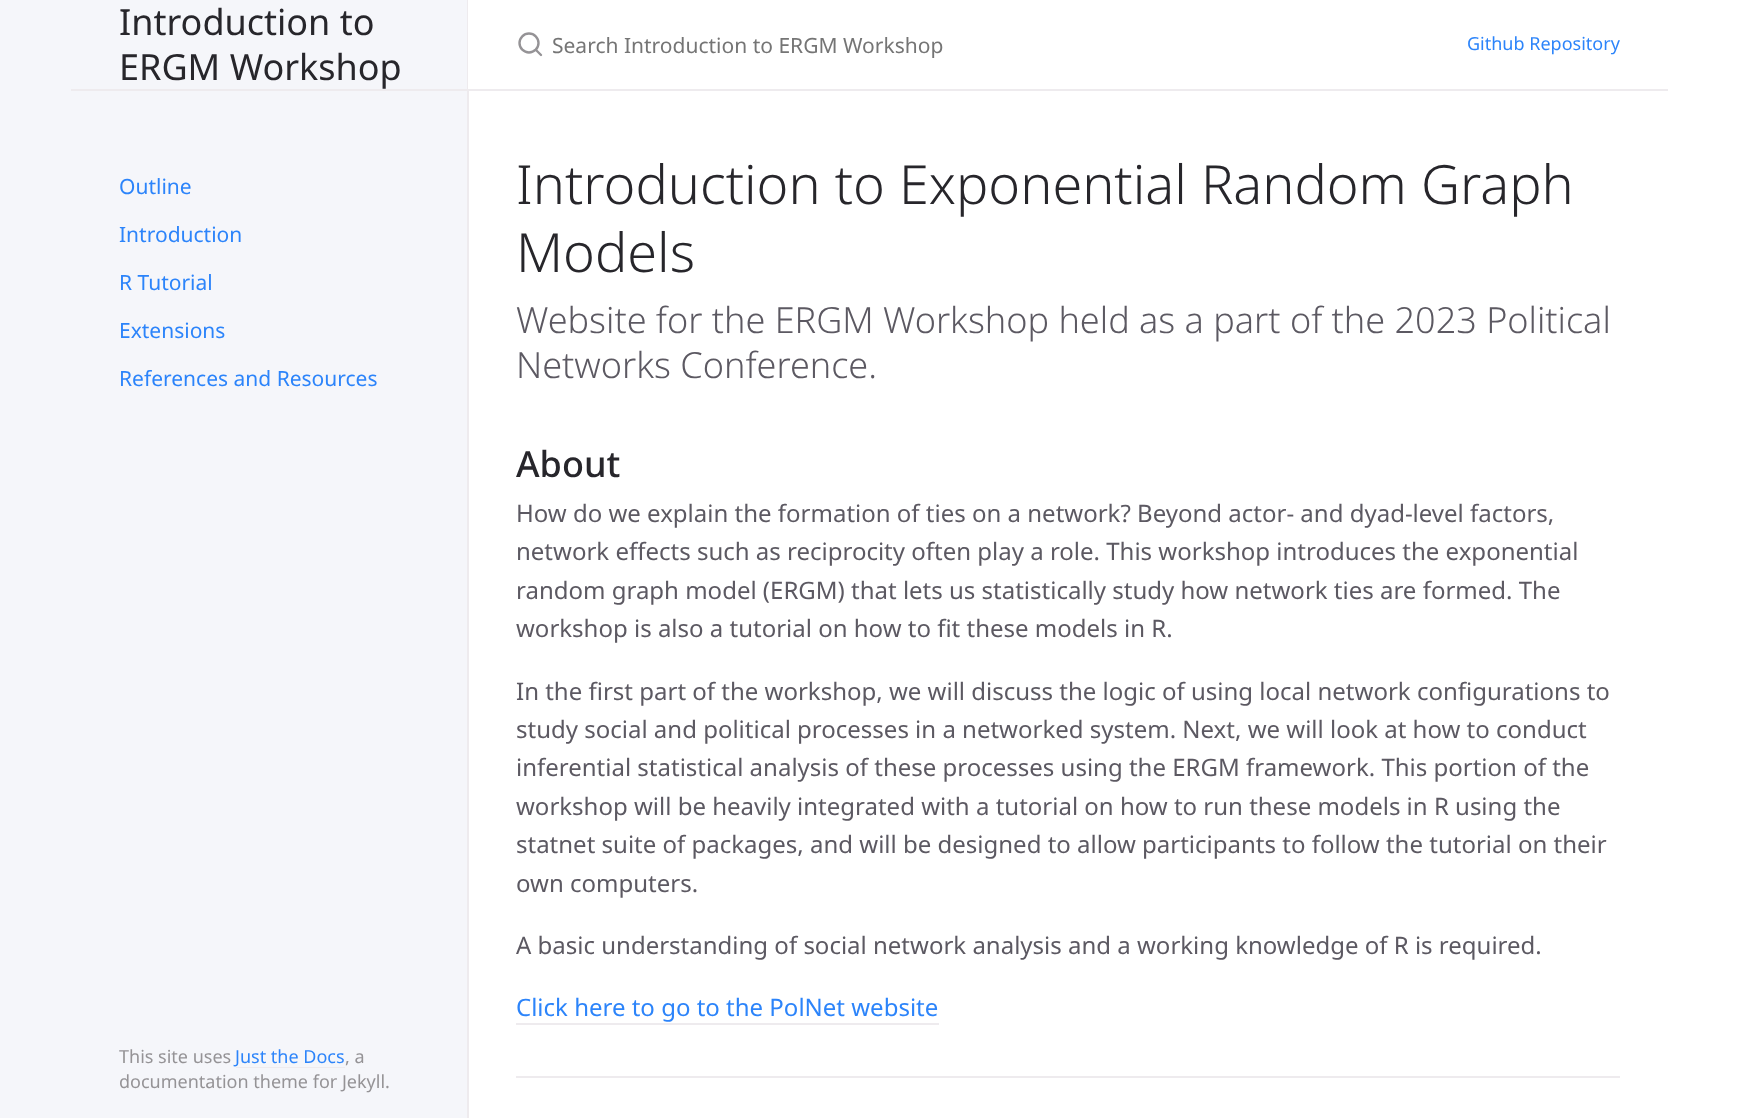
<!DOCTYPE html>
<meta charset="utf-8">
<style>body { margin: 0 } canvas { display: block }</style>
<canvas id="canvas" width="1740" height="1118"></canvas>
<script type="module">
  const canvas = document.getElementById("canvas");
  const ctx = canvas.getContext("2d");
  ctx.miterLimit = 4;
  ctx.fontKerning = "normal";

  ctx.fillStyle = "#ffffff";
  ctx.fillRect(0, 0, 1740, 1118);
  ctx.fillStyle = "#f5f6fa";
  ctx.fillRect(0, 0, 467, 1118);
  ctx.fillStyle = "#eeebee";
  ctx.fillRect(467, 0, 2, 1118);
  ctx.fillRect(71, 89, 396, 2);
  ctx.font = "36px Noto Sans";
  ctx.fillStyle = "#27262b";
  ctx.fillText("Introduction to", 119, 35);
  ctx.fillText("ERGM Workshop", 119, 80);
  ctx.font = "21px Noto Sans";
  ctx.fillStyle = "#2c84fa";
  ctx.fillText("Outline", 119, 194);
  ctx.fillText("Introduction", 119, 242);
  ctx.fillText("R Tutorial", 119, 290);
  ctx.fillText("Extensions", 119, 338);
  ctx.fillText("References and Resources", 119, 386);
  ctx.font = "18px Noto Sans";
  ctx.fillStyle = "#959396";
  ctx.fillText("This site uses", 119, 1063);
  ctx.fillStyle = "#2c84fa";
  ctx.fillText("Just the Docs", 235, 1063);
  ctx.fillStyle = "#eeebee";
  ctx.fillRect(236, 1067, 109, 1);
  ctx.fillStyle = "#959396";
  ctx.fillText(", a", 345, 1063);
  ctx.fillText("documentation theme for Jekyll.", 119, 1088);
  ctx.fillStyle = "#ffffff";
  ctx.fillRect(468, 0, 1, 89);
  ctx.fillStyle = "#eeebee";
  ctx.fillRect(468, 89, 1200, 2);
  ctx.beginPath();
  ctx.arc(529, 43, 9.5, 0, Math.PI * 2);
  ctx.strokeStyle = "#959396";
  ctx.lineWidth = 2.4;
  ctx.stroke();
  ctx.beginPath();
  ctx.moveTo(541, 55);
  ctx.lineTo(536, 50);
  ctx.lineCap = "round";
  ctx.lineJoin = "round";
  ctx.stroke();
  ctx.font = "21px Noto Sans";
  ctx.fillStyle = "#757575";
  ctx.fillText("Search Introduction to ERGM Workshop", 552, 53);
  ctx.font = "18px Noto Sans";
  ctx.fillStyle = "#2c84fa";
  ctx.fillText("Github Repository", 1467, 50);
  ctx.font = "300 54px Noto Sans";
  ctx.fillStyle = "#27262b";
  ctx.fillText("Introduction to Exponential Random Graph", 516, 204);
  ctx.fillText("Models", 516, 272);
  ctx.font = "300 36px Noto Sans";
  ctx.fillStyle = "#5c5962";
  ctx.fillText("Website for the ERGM Workshop held as a part of the 2023 Political", 516, 333);
  ctx.fillText("Networks Conference.", 516, 378);
  ctx.font = "500 36px Noto Sans";
  ctx.fillStyle = "#27262b";
  ctx.fillText("About", 516, 477);
  ctx.font = "24px Noto Sans";
  ctx.fillStyle = "#5c5962";
  ctx.fillText("How do we explain the formation of ties on a network? Beyond actor- and dyad-level factors,", 516, 522);
  ctx.fillText("network effects such as reciprocity often play a role. This workshop introduces the exponential", 516, 560);
  ctx.fillText("random graph model (ERGM) that lets us statistically study how network ties are formed. The", 516, 599);
  ctx.fillText("workshop is also a tutorial on how to fit these models in R.", 516, 637);
  ctx.fillText("In the first part of the workshop, we will discuss the logic of using local network configurations to", 516, 700);
  ctx.fillText("study social and political processes in a networked system. Next, we will look at how to conduct", 516, 738);
  ctx.fillText("inferential statistical analysis of these processes using the ERGM framework. This portion of the", 516, 776);
  ctx.fillText("workshop will be heavily integrated with a tutorial on how to run these models in R using the", 516, 815);
  ctx.fillText("statnet suite of packages, and will be designed to allow participants to follow the tutorial on their", 516, 853);
  ctx.fillText("own computers.", 516, 892);
  ctx.fillText("A basic understanding of social network analysis and a working knowledge of R is required.", 516, 954);
  ctx.fillStyle = "#2c84fa";
  ctx.fillText("Click here to go to the PolNet website", 516, 1016);
  ctx.fillStyle = "#eeebee";
  ctx.fillRect(516, 1023, 423, 2);
  ctx.fillRect(516, 1076, 1104, 2);
</script>
